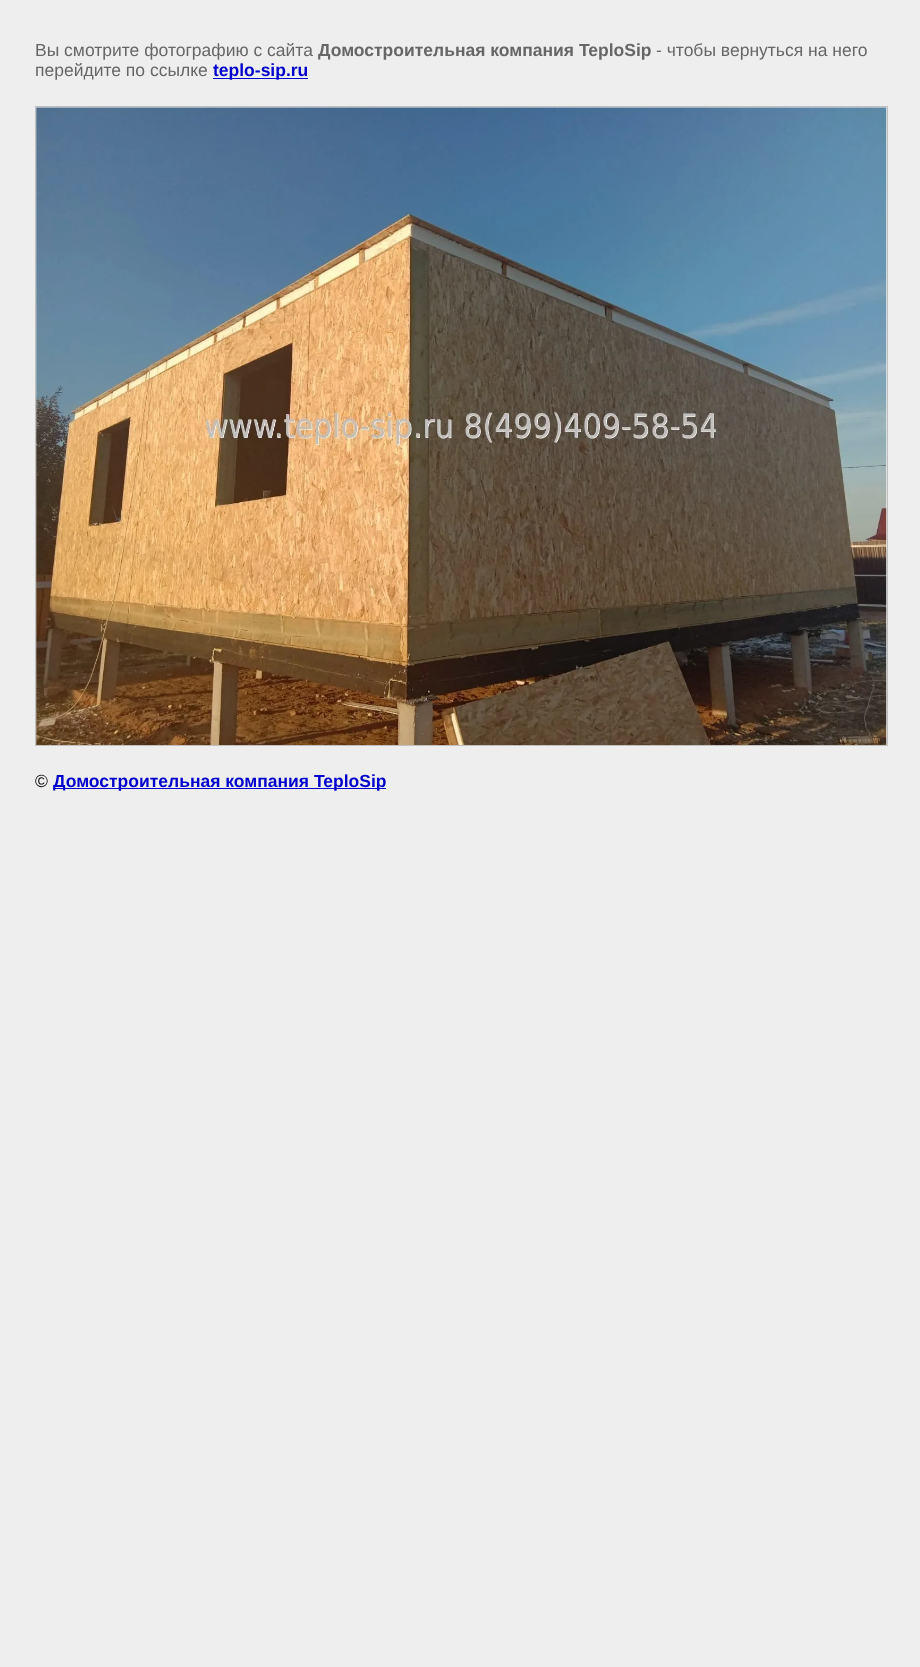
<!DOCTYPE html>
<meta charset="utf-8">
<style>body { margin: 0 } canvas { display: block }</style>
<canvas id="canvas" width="920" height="1667"></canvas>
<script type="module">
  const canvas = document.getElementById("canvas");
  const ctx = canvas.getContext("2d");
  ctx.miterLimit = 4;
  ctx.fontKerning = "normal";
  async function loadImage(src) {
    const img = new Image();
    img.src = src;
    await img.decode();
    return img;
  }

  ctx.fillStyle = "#eeeeee";
  ctx.fillRect(0, 0, 920, 1667);
  ctx.font = "17.5px Liberation Sans";
  ctx.fillStyle = "#666666";
  ctx.fillText("Вы смотрите фотографию с сайта", 35, 56);
  ctx.font = "bold 17.5px Liberation Sans";
  ctx.fillText("Домостроительная компания TeploSip", 318, 56);
  ctx.font = "17.5px Liberation Sans";
  ctx.fillText("- чтобы вернуться на него", 656, 56);
  ctx.fillText("перейдите по ссылке", 35, 76);
  ctx.fillStyle = "#0000cc";
  ctx.fillRect(213, 78, 95, 1);
  ctx.font = "bold 17.5px Liberation Sans";
  ctx.fillText("teplo-sip.ru", 213, 76);
  ctx.strokeStyle = "#c0c0c0";
  ctx.strokeRect(35.5, 106.5, 852, 639);
  ctx.drawImage(await loadImage("img1.png"), 36, 107, 851, 638);
  ctx.font = "17.5px Liberation Sans";
  ctx.fillStyle = "#000000";
  ctx.fillText("©", 35, 787);
  ctx.fillStyle = "#0000cc";
  ctx.fillRect(53, 788, 333, 1);
  ctx.font = "bold 17.5px Liberation Sans";
  ctx.fillText("Домостроительная компания TeploSip", 53, 787);
</script>
